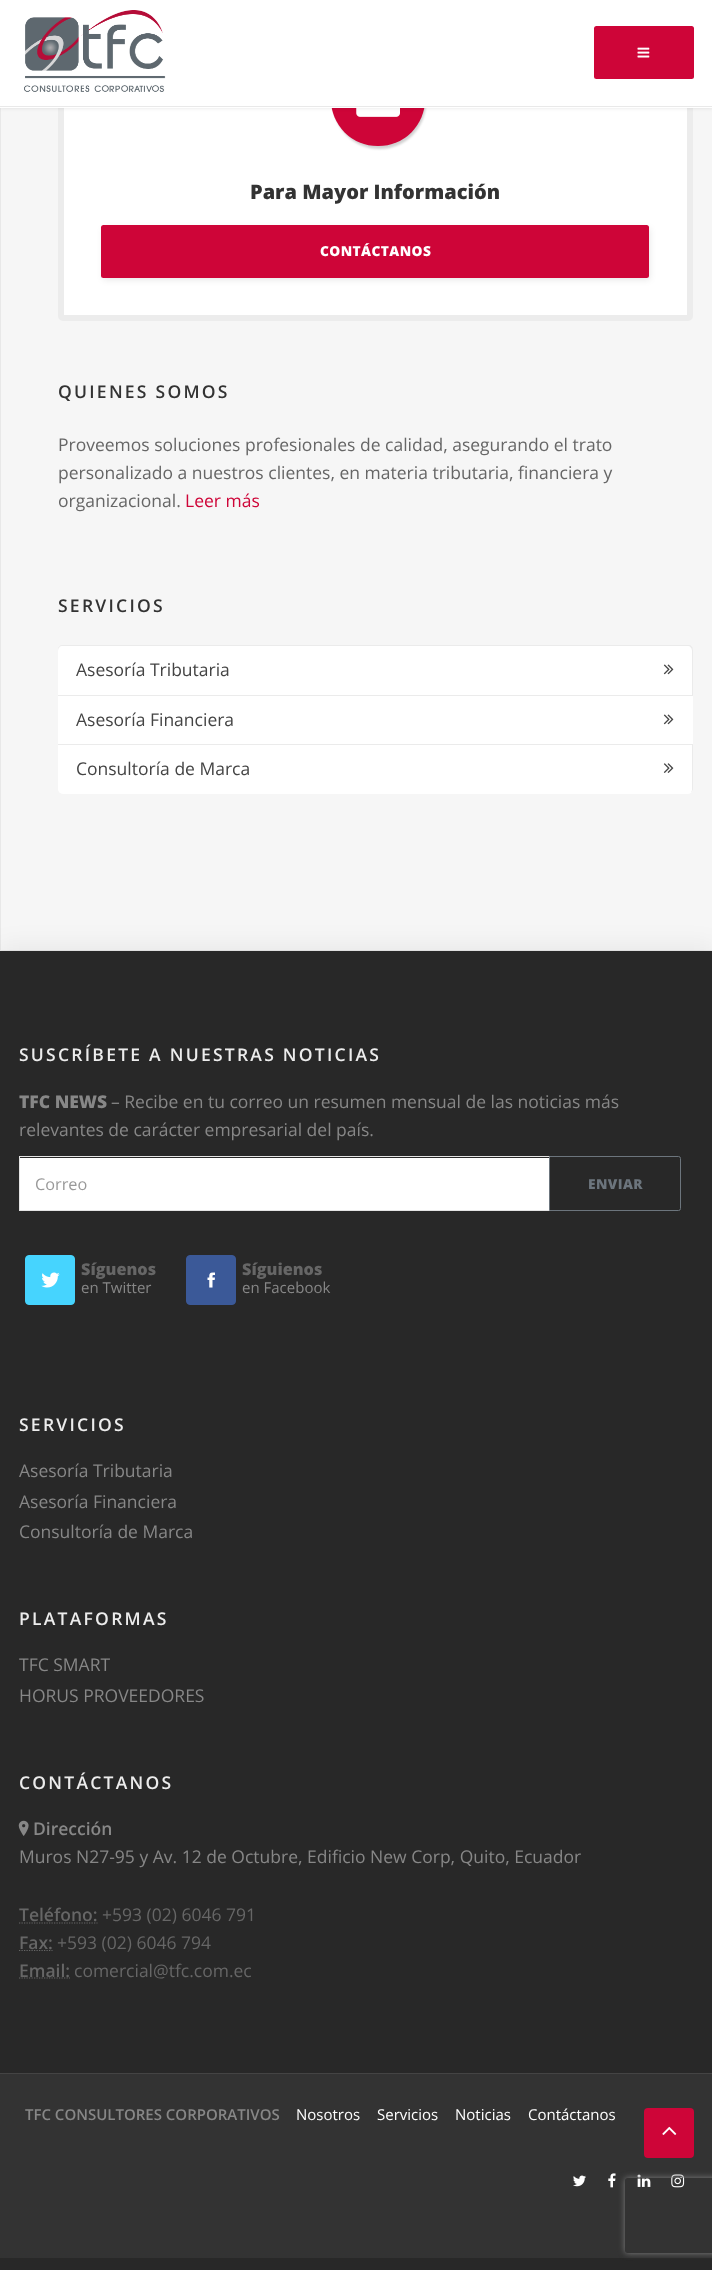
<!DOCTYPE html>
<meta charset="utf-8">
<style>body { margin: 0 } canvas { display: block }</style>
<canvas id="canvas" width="712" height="2270"></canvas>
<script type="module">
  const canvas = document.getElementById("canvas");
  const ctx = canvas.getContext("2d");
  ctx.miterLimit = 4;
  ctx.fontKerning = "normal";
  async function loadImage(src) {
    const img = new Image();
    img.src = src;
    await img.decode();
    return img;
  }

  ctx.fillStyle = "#f6f6f6";
  ctx.fillRect(0, 0, 712, 2270);
  ctx.strokeStyle = "#e8e8e8";
  ctx.strokeRect(0.5, -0.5, 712, 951);
  ctx.fillStyle = "#ffffff";
  ctx.beginPath();
  ctx.roundRect(61, 99, 629, 219, 2);
  ctx.fill();
  ctx.strokeStyle = "#ececec";
  ctx.lineWidth = 6;
  ctx.stroke();
  ctx.fillStyle = "rgba(0, 0, 0, 0.18)";
  ctx.filter = "blur(1px)";
  ctx.beginPath();
  ctx.roundRect(333, 55, 93, 94, 46.5);
  ctx.fill();
  ctx.filter = "none";
  ctx.fillStyle = "#ce0538";
  ctx.beginPath();
  ctx.roundRect(331, 53, 94, 93, 46.5);
  ctx.fill();
  ctx.drawImage(await loadImage("img3.png"), 356, 108, 44, 9);
  ctx.fillStyle = "rgba(0, 0, 0, 0.1)";
  ctx.filter = "blur(2px)";
  ctx.beginPath();
  ctx.rect(0, 0, 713, 108);
  ctx.fill();
  ctx.filter = "none";
  ctx.fillStyle = "#ffffff";
  ctx.fillRect(0, 0, 712, 108);
  ctx.fillStyle = "#e9e9e9";
  ctx.fillRect(0, 106, 712, 1);
  ctx.drawImage(await loadImage("img1.png"), 24, 10, 142, 82);
  ctx.fillStyle = "#ce0538";
  ctx.beginPath();
  ctx.roundRect(594, 26, 100, 53, 2.5);
  ctx.fill();
  ctx.drawImage(await loadImage("img2.png"), 637, 47, 13, 11);
  ctx.font = "800 20px Open Sans";
  ctx.fillStyle = "#333333";
  ctx.fillText("Para Mayor Información", 250, 199);
  ctx.fillStyle = "rgba(0, 0, 0, 0.09)";
  ctx.filter = "blur(3px)";
  ctx.beginPath();
  ctx.roundRect(103, 228, 547, 52, 2.5);
  ctx.fill();
  ctx.filter = "none";
  ctx.fillStyle = "#ce0538";
  ctx.beginPath();
  ctx.roundRect(101, 225, 548, 53, 2.5);
  ctx.fill();
  ctx.letterSpacing = "0.4px";
  ctx.font = "800 13.75px Open Sans";
  ctx.fillStyle = "#ffffff";
  ctx.fillText("CONTÁCTANOS", 320, 256);
  ctx.letterSpacing = "2.25px";
  ctx.font = "600 17.5px Open Sans";
  ctx.fillStyle = "#333333";
  ctx.fillText("QUIENES SOMOS", 58, 398);
  ctx.letterSpacing = "0px";
  ctx.font = "17.5px Open Sans";
  ctx.fillStyle = "#666666";
  ctx.fillText("Proveemos soluciones profesionales de calidad, asegurando el trato", 58, 451);
  ctx.fillText("personalizado a nuestros clientes, en materia tributaria, financiera y", 58, 479);
  ctx.fillText("organizacional.", 58, 507);
  ctx.fillStyle = "#ce0538";
  ctx.fillText("Leer más", 185, 507);
  ctx.letterSpacing = "2.25px";
  ctx.font = "600 17.5px Open Sans";
  ctx.fillStyle = "#333333";
  ctx.fillText("SERVICIOS", 58, 612);
  ctx.fillStyle = "#ffffff";
  ctx.beginPath();
  ctx.roundRect(58, 645, 635, 50, [5, 5, 0, 0]);
  ctx.fill();
  ctx.fillStyle = "rgba(0, 0, 0, 0.08)";
  ctx.beginPath();
  ctx.moveTo(62, 646);
  ctx.lineTo(688, 646);
  ctx.bezierCurveTo(690, 646, 692, 648, 692, 651);
  ctx.lineTo(692, 695);
  ctx.lineTo(693, 695);
  ctx.lineTo(693, 650);
  ctx.bezierCurveTo(693, 647, 691, 645, 688, 645);
  ctx.lineTo(63, 645);
  ctx.bezierCurveTo(60, 645, 58, 647, 58, 650);
  ctx.lineTo(58, 651);
  ctx.bezierCurveTo(58, 648, 60, 646, 62, 646);
  ctx.closePath();
  ctx.fill();
  ctx.letterSpacing = "0px";
  ctx.font = "17.5px Open Sans";
  ctx.fillStyle = "#444444";
  ctx.fillText("Asesoría Tributaria", 76, 676);
  ctx.drawImage(await loadImage("img4.png"), 663, 664, 11, 11);
  ctx.fillStyle = "#ffffff";
  ctx.fillRect(58, 696, 635, 48);
  ctx.fillStyle = "#ebebeb";
  ctx.fillRect(58, 695, 635, 1);
  ctx.fillStyle = "#444444";
  ctx.fillText("Asesoría Financiera", 76, 726);
  ctx.drawImage(await loadImage("img4.png"), 663, 714, 11, 11);
  ctx.fillStyle = "#ffffff";
  ctx.beginPath();
  ctx.roundRect(58, 744, 635, 50, [0, 0, 5, 5]);
  ctx.fill();
  ctx.fillStyle = "#ebebeb";
  ctx.beginPath();
  ctx.moveTo(58, 745);
  ctx.lineTo(692, 745);
  ctx.lineTo(692, 790);
  ctx.lineTo(691, 793);
  ctx.bezierCurveTo(692, 792, 693, 790, 693, 789);
  ctx.lineTo(693, 744);
  ctx.lineTo(58, 744);
  ctx.closePath();
  ctx.fill();
  ctx.fillStyle = "#444444";
  ctx.fillText("Consultoría de Marca", 76, 775);
  ctx.drawImage(await loadImage("img5.png"), 663, 763, 11, 10);
  ctx.fillStyle = "rgba(8, 8, 8, 0.05)";
  ctx.filter = "blur(11px)";
  ctx.beginPath();
  ctx.rect(0, 944, 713, 1319);
  ctx.fill();
  ctx.filter = "none";
  ctx.fillStyle = "#282828";
  ctx.fillRect(0, 951, 712, 1319);
  ctx.fillStyle = "#444444";
  ctx.fillRect(0, 2073, 712, 1);
  ctx.letterSpacing = "2.25px";
  ctx.font = "600 17.5px Open Sans";
  ctx.fillStyle = "#ececec";
  ctx.fillText("SUSCRÍBETE A NUESTRAS NOTICIAS", 19, 1061);
  ctx.letterSpacing = "0px";
  ctx.font = "800 17.5px Open Sans";
  ctx.fillStyle = "#878787";
  ctx.fillText("TFC NEWS", 19, 1108);
  ctx.font = "17.5px Open Sans";
  ctx.fillText("– Recibe en tu correo un resumen mensual de las noticias más", 111, 1108);
  ctx.fillText("relevantes de carácter empresarial del país.", 19, 1136);
  ctx.fillStyle = "#ffffff";
  ctx.fillRect(20, 1158, 529, 52);
  ctx.strokeStyle = "#e4e4e4";
  ctx.lineWidth = 1;
  ctx.strokeRect(19.5, 1156.5, 530, 54);
  ctx.font = "16.25px Open Sans";
  ctx.fillStyle = "#999999";
  ctx.fillText("Correo", 35, 1190);
  ctx.beginPath();
  ctx.roundRect(549.5, 1156.5, 131, 54, [0, 2, 2, 0]);
  ctx.strokeStyle = "#6c757d";
  ctx.stroke();
  ctx.letterSpacing = "0.4px";
  ctx.font = "800 13.75px Open Sans";
  ctx.fillStyle = "#6c757d";
  ctx.fillText("ENVIAR", 588, 1189);
  ctx.fillStyle = "#46d4fe";
  ctx.beginPath();
  ctx.roundRect(25.5, 1255.5, 49, 49, 3.5);
  ctx.fill();
  ctx.strokeStyle = "#46d4fe";
  ctx.stroke();
  ctx.drawImage(await loadImage("img6.png"), 41, 1272, 19, 16);
  ctx.letterSpacing = "0px";
  ctx.font = "800 16.25px Open Sans";
  ctx.fillStyle = "#666666";
  ctx.fillText("Síguenos", 81, 1275);
  ctx.font = "15px Open Sans";
  ctx.fillStyle = "#878787";
  ctx.fillText("en Twitter", 81, 1293);
  ctx.fillStyle = "#3b5998";
  ctx.beginPath();
  ctx.roundRect(186.5, 1255.5, 49, 49, 3.5);
  ctx.fill();
  ctx.strokeStyle = "#3b5998";
  ctx.stroke();
  ctx.drawImage(await loadImage("img7.png"), 207, 1272, 8, 16);
  ctx.font = "800 16.25px Open Sans";
  ctx.fillStyle = "#666666";
  ctx.fillText("Síguienos", 242, 1275);
  ctx.font = "15px Open Sans";
  ctx.fillStyle = "#878787";
  ctx.fillText("en Facebook", 242, 1293);
  ctx.letterSpacing = "2.25px";
  ctx.font = "600 17.5px Open Sans";
  ctx.fillStyle = "#ececec";
  ctx.fillText("SERVICIOS", 19, 1431);
  ctx.letterSpacing = "0px";
  ctx.font = "17.5px Open Sans";
  ctx.fillStyle = "#878787";
  ctx.fillText("Asesoría Tributaria", 19, 1477);
  ctx.fillText("Asesoría Financiera", 19, 1508);
  ctx.fillText("Consultoría de Marca", 19, 1538);
  ctx.letterSpacing = "2.25px";
  ctx.font = "600 17.5px Open Sans";
  ctx.fillStyle = "#ececec";
  ctx.fillText("PLATAFORMAS", 19, 1625);
  ctx.letterSpacing = "0px";
  ctx.font = "17.5px Open Sans";
  ctx.fillStyle = "#878787";
  ctx.fillText("TFC SMART", 19, 1671);
  ctx.fillText("HORUS PROVEEDORES", 19, 1702);
  ctx.letterSpacing = "2.25px";
  ctx.font = "600 17.5px Open Sans";
  ctx.fillStyle = "#ececec";
  ctx.fillText("CONTÁCTANOS", 19, 1789);
  ctx.drawImage(await loadImage("img8.png"), 18, 1820, 11, 16);
  ctx.letterSpacing = "0px";
  ctx.fillStyle = "#878787";
  ctx.fillText("Dirección", 33, 1835);
  ctx.font = "17.5px Open Sans";
  ctx.fillText("Muros N27-95 y Av. 12 de Octubre, Edificio New Corp, Quito, Ecuador", 19, 1863);
  ctx.font = "600 17.5px Open Sans";
  ctx.fillStyle = "#666666";
  ctx.fillText("Teléfono:", 19, 1921);
  ctx.beginPath();
  ctx.moveTo(19, 1923);
  ctx.lineTo(97.5, 1923);
  ctx.strokeStyle = "#666666";
  ctx.lineWidth = 1.2;
  ctx.setLineDash([1.25, 1.25]);
  ctx.stroke();
  ctx.font = "17.5px Open Sans";
  ctx.fillText("+593 (02) 6046 791", 102, 1921);
  ctx.beginPath();
  ctx.moveTo(19, 1950.5);
  ctx.lineTo(52.5, 1950.5);
  ctx.stroke();
  ctx.font = "600 17.5px Open Sans";
  ctx.fillText("Fax:", 19, 1949);
  ctx.font = "17.5px Open Sans";
  ctx.fillText("+593 (02) 6046 794", 57, 1949);
  ctx.beginPath();
  ctx.moveTo(19, 1978);
  ctx.lineTo(70, 1978);
  ctx.stroke();
  ctx.font = "600 17.5px Open Sans";
  ctx.fillText("Email:", 19, 1977);
  ctx.font = "17.5px Open Sans";
  ctx.fillText("comercial@tfc.com.ec", 74, 1977);
  ctx.fillStyle = "#333333";
  ctx.fillRect(0, 2074, 712, 184);
  ctx.font = "600 15px Open Sans";
  ctx.fillStyle = "#878787";
  ctx.fillText("TFC CONSULTORES CORPORATIVOS", 25, 2120);
  ctx.font = "15px Open Sans";
  ctx.fillStyle = "#ffffff";
  ctx.fillText("Nosotros", 296, 2120);
  ctx.fillText("Servicios", 377, 2120);
  ctx.fillText("Noticias", 455, 2120);
  ctx.fillText("Contáctanos", 528, 2120);
  ctx.drawImage(await loadImage("img9.png"), 573, 2175, 13, 12);
  ctx.drawImage(await loadImage("img10.png"), 608, 2173, 8, 15);
  ctx.drawImage(await loadImage("img11.png"), 637, 2174, 14, 13);
  ctx.drawImage(await loadImage("img12.png"), 671, 2174, 14, 14);
  ctx.fillStyle = "#ce0538";
  ctx.beginPath();
  ctx.roundRect(644, 2108, 50, 50, 4);
  ctx.fill();
  ctx.drawImage(await loadImage("img13.png"), 662, 2126, 15, 9);
  ctx.save();
  ctx.beginPath();
  ctx.moveTo(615, 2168);
  ctx.lineTo(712, 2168);
  ctx.lineTo(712, 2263);
  ctx.lineTo(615, 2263);
  ctx.closePath();
  ctx.moveTo(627.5, 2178);
  ctx.lineTo(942.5, 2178);
  ctx.bezierCurveTo(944, 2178, 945, 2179, 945, 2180.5);
  ctx.lineTo(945, 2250.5);
  ctx.bezierCurveTo(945, 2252, 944, 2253, 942.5, 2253);
  ctx.lineTo(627.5, 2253);
  ctx.bezierCurveTo(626, 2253, 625, 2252, 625, 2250.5);
  ctx.lineTo(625, 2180.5);
  ctx.bezierCurveTo(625, 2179, 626, 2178, 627.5, 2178);
  ctx.closePath();
  ctx.clip("evenodd");
  ctx.fillStyle = "#808080";
  ctx.filter = "blur(3px)";
  ctx.beginPath();
  ctx.roundRect(625, 2178, 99, 75, 2.5);
  ctx.fill();
  ctx.filter = "none";
  ctx.restore();
</script>
